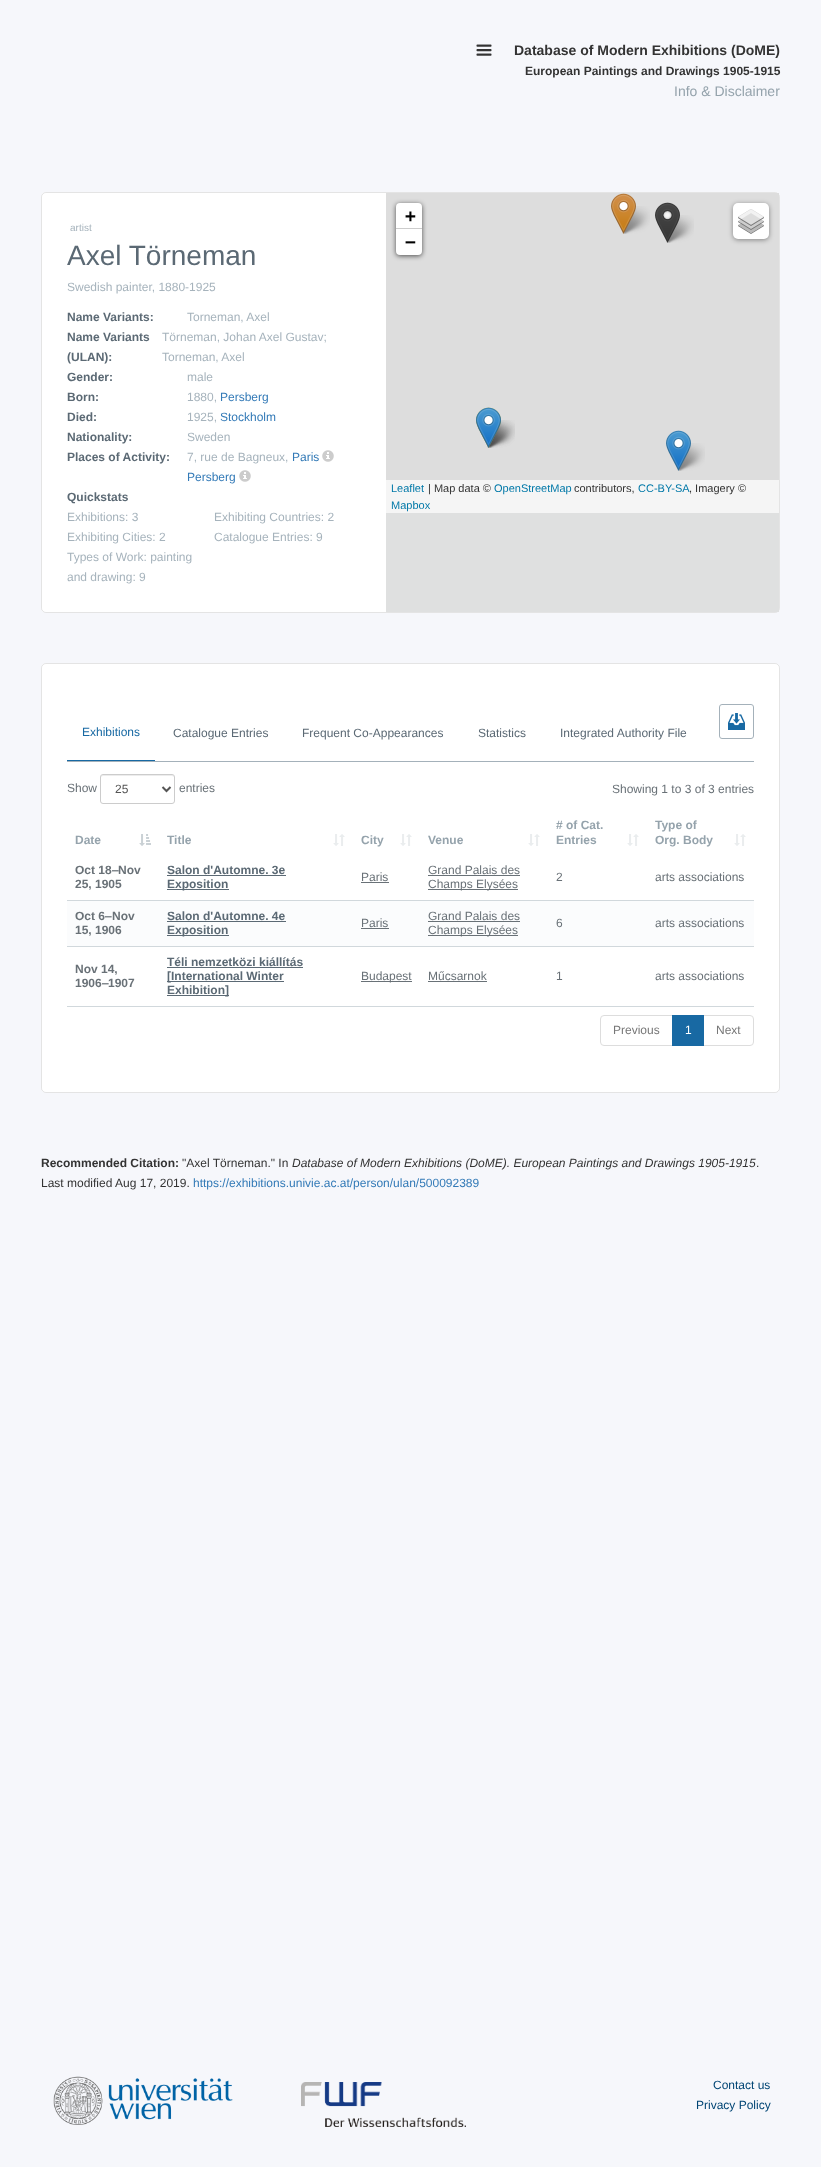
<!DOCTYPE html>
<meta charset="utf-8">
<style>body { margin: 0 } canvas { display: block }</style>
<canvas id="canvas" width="821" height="2167"></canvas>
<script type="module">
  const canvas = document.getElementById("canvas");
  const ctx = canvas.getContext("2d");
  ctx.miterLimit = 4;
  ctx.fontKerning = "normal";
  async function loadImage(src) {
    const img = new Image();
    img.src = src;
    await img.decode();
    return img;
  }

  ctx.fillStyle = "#f6f7fb";
  ctx.fillRect(0, 0, 821, 2167);
  ctx.drawImage(await loadImage("img1.png"), 476, 44, 16, 12);
  ctx.font = "bold 14px Arimo";
  ctx.fillStyle = "#333333";
  ctx.fillText("Database of Modern Exhibitions (DoME)", 514, 55);
  ctx.font = "bold 12px Arimo";
  ctx.fillText("European Paintings and Drawings 1905-1915", 525, 75);
  ctx.font = "14px Arimo";
  ctx.fillStyle = "#95a3ac";
  ctx.fillText("Info & Disclaimer", 674, 96);
  ctx.fillStyle = "#ffffff";
  ctx.beginPath();
  ctx.roundRect(41, 192, 739, 421, 5);
  ctx.fill();
  ctx.beginPath();
  ctx.roundRect(41.5, 192.5, 738, 420, 4.5);
  ctx.strokeStyle = "rgba(112, 112, 112, 0.19)";
  ctx.stroke();
  ctx.font = "10px Arimo";
  ctx.fillStyle = "#a6b3bc";
  ctx.fillText("artist", 70, 231);
  ctx.font = "28px Arimo";
  ctx.fillStyle = "#5b6974";
  ctx.fillText("Axel Törneman", 67, 265);
  ctx.font = "12px Arimo";
  ctx.fillStyle = "#a6b3bc";
  ctx.fillText("Swedish painter, 1880-1925", 67, 291);
  ctx.font = "bold 12px Arimo";
  ctx.fillStyle = "#5b6974";
  ctx.fillText("Name Variants:", 67, 321);
  ctx.font = "12px Arimo";
  ctx.fillStyle = "#a6b3bc";
  ctx.fillText("Torneman, Axel", 187, 321);
  ctx.font = "bold 12px Arimo";
  ctx.fillStyle = "#5b6974";
  ctx.fillText("Name Variants", 67, 341);
  ctx.fillText("(ULAN):", 67, 361);
  ctx.font = "12px Arimo";
  ctx.fillStyle = "#a6b3bc";
  ctx.fillText("Törneman, Johan Axel Gustav;", 162, 341);
  ctx.fillText("Torneman, Axel", 162, 361);
  ctx.font = "bold 12px Arimo";
  ctx.fillStyle = "#5b6974";
  ctx.fillText("Gender:", 67, 381);
  ctx.font = "12px Arimo";
  ctx.fillStyle = "#a6b3bc";
  ctx.fillText("male", 187, 381);
  ctx.font = "bold 12px Arimo";
  ctx.fillStyle = "#5b6974";
  ctx.fillText("Born:", 67, 401);
  ctx.font = "12px Arimo";
  ctx.fillStyle = "#a6b3bc";
  ctx.fillText("1880,", 187, 401);
  ctx.fillStyle = "#337ab7";
  ctx.fillText("Persberg", 220, 401);
  ctx.font = "bold 12px Arimo";
  ctx.fillStyle = "#5b6974";
  ctx.fillText("Died:", 67, 421);
  ctx.font = "12px Arimo";
  ctx.fillStyle = "#a6b3bc";
  ctx.fillText("1925,", 187, 421);
  ctx.fillStyle = "#337ab7";
  ctx.fillText("Stockholm", 220, 421);
  ctx.font = "bold 12px Arimo";
  ctx.fillStyle = "#5b6974";
  ctx.fillText("Nationality:", 67, 441);
  ctx.font = "12px Arimo";
  ctx.fillStyle = "#a6b3bc";
  ctx.fillText("Sweden", 187, 441);
  ctx.font = "bold 12px Arimo";
  ctx.fillStyle = "#5b6974";
  ctx.fillText("Places of Activity:", 67, 461);
  ctx.font = "12px Arimo";
  ctx.fillStyle = "#a6b3bc";
  ctx.fillText("7, rue de Bagneux,", 187, 461);
  ctx.fillStyle = "#337ab7";
  ctx.fillText("Paris", 292, 461);
  ctx.drawImage(await loadImage("img2.png"), 322, 450, 12, 12);
  ctx.fillText("Persberg", 187, 481);
  ctx.drawImage(await loadImage("img2.png"), 239, 470, 12, 12);
  ctx.font = "bold 12px Arimo";
  ctx.fillStyle = "#5b6974";
  ctx.fillText("Quickstats", 67, 501);
  ctx.font = "12px Arimo";
  ctx.fillStyle = "#a6b3bc";
  ctx.fillText("Exhibitions: 3", 67, 521);
  ctx.fillText("Exhibiting Countries: 2", 214, 521);
  ctx.fillText("Exhibiting Cities: 2", 67, 541);
  ctx.fillText("Catalogue Entries: 9", 214, 541);
  ctx.fillText("Types of Work: painting", 67, 561);
  ctx.fillText("and drawing: 9", 67, 581);
  ctx.fillStyle = "#dfe0e0";
  ctx.fillRect(386, 513, 393, 99);
  ctx.fillStyle = "#dddddd";
  ctx.fillRect(386, 193, 393, 287);
  ctx.drawImage(await loadImage("img8.png"), 621, 206, 29, 28);
  ctx.drawImage(await loadImage("img3.png"), 611, 193, 25, 41);
  ctx.drawImage(await loadImage("img8.png"), 665, 215, 29, 28);
  ctx.drawImage(await loadImage("img4.png"), 655, 202, 25, 41);
  ctx.drawImage(await loadImage("img8.png"), 486, 420, 29, 28);
  ctx.drawImage(await loadImage("img9.png"), 486, 420, 29, 28);
  ctx.drawImage(await loadImage("img5.png"), 476, 407, 25, 41);
  ctx.drawImage(await loadImage("img6.png"), 476, 407, 25, 41);
  ctx.drawImage(await loadImage("img8.png"), 676, 443, 29, 28);
  ctx.drawImage(await loadImage("img7.png"), 666, 430, 25, 41);
  ctx.fillStyle = "rgba(0, 0, 0, 0.65)";
  ctx.filter = "blur(2.5px)";
  ctx.beginPath();
  ctx.roundRect(396, 204, 26, 52, 4);
  ctx.fill();
  ctx.filter = "none";
  ctx.fillStyle = "#ffffff";
  ctx.beginPath();
  ctx.roundRect(396, 203, 26, 26, [4, 4, 0, 0]);
  ctx.fill();
  ctx.fillStyle = "#cccccc";
  ctx.fillRect(396, 228, 26, 1);
  ctx.font = "bold 18px DejaVu Sans Mono";
  ctx.fillStyle = "#000000";
  ctx.fillText("+", 405, 222);
  ctx.fillStyle = "#ffffff";
  ctx.beginPath();
  ctx.roundRect(396, 229, 26, 26, [0, 0, 4, 4]);
  ctx.fill();
  ctx.fillStyle = "#000000";
  ctx.fillText("−", 405, 248);
  ctx.fillStyle = "rgba(0, 0, 0, 0.4)";
  ctx.filter = "blur(2.5px)";
  ctx.beginPath();
  ctx.roundRect(733, 204, 36, 36, 5);
  ctx.fill();
  ctx.filter = "none";
  ctx.fillStyle = "#ffffff";
  ctx.beginPath();
  ctx.roundRect(733, 203, 36, 36, 5);
  ctx.fill();
  ctx.drawImage(await loadImage("img10.png"), 738, 209, 26, 25);
  ctx.fillStyle = "#f5f5f5";
  ctx.fillRect(386, 480, 393, 33);
  ctx.font = "11px Liberation Sans";
  ctx.fillStyle = "#0078a8";
  ctx.fillText("Leaflet", 391, 492);
  ctx.fillStyle = "#333333";
  ctx.fillText("| Map data ©", 428, 492);
  ctx.fillStyle = "#0078a8";
  ctx.fillText("OpenStreetMap", 494, 492);
  ctx.fillStyle = "#333333";
  ctx.fillText("contributors,", 574, 492);
  ctx.fillStyle = "#0078a8";
  ctx.fillText("CC-BY-SA", 638, 492);
  ctx.fillStyle = "#333333";
  ctx.fillText(", Imagery ©", 689, 492);
  ctx.fillStyle = "#0078a8";
  ctx.fillText("Mapbox", 391, 509);
  ctx.fillStyle = "#ffffff";
  ctx.beginPath();
  ctx.roundRect(41, 663, 739, 430, 5);
  ctx.fill();
  ctx.beginPath();
  ctx.roundRect(41.5, 663.5, 738, 429, 4.5);
  ctx.stroke();
  ctx.fillStyle = "#a4b1ba";
  ctx.fillRect(67, 761, 687, 1);
  ctx.fillStyle = "#1869a3";
  ctx.fillRect(67, 760, 88, 1);
  ctx.font = "12px Arimo";
  ctx.fillText("Exhibitions", 82, 736);
  ctx.fillStyle = "#5b6974";
  ctx.fillText("Catalogue Entries", 173, 737);
  ctx.fillText("Frequent Co-Appearances", 302, 737);
  ctx.fillText("Statistics", 478, 737);
  ctx.fillText("Integrated Authority File", 560, 737);
  ctx.beginPath();
  ctx.roundRect(719.5, 704.5, 34, 34, 2.5);
  ctx.strokeStyle = "#a4b1ba";
  ctx.stroke();
  ctx.drawImage(await loadImage("img11.png"), 728, 713, 17, 17);
  ctx.fillStyle = "#697177";
  ctx.fillText("Show", 67, 792);
  ctx.fillStyle = "#ececec";
  ctx.beginPath();
  ctx.moveTo(103, 776);
  ctx.lineTo(172, 776);
  ctx.bezierCurveTo(173, 776, 174, 777, 174, 778);
  ctx.bezierCurveTo(174, 772, 164, 775, 160, 775);
  ctx.lineTo(114, 775);
  ctx.bezierCurveTo(111, 775, 101, 772, 101, 778);
  ctx.bezierCurveTo(101, 777, 102, 776, 103, 776);
  ctx.closePath();
  ctx.fill();
  ctx.beginPath();
  ctx.roundRect(100.5, 774.5, 74, 29, 2.5);
  ctx.strokeStyle = "#cccccc";
  ctx.stroke();
  ctx.beginPath();
  ctx.moveTo(162.5, 787);
  ctx.lineTo(166.5, 791);
  ctx.lineTo(170.5, 787);
  ctx.strokeStyle = "#555555";
  ctx.lineWidth = 2;
  ctx.stroke();
  ctx.fillStyle = "#555555";
  ctx.fillText("25", 115, 793);
  ctx.fillStyle = "#697177";
  ctx.fillText("entries", 179, 792);
  ctx.fillText("Showing 1 to 3 of 3 entries", 612, 793);
  ctx.font = "bold 12px Arimo";
  ctx.fillStyle = "#95a3ac";
  ctx.fillText("Date", 75, 844);
  ctx.drawImage(await loadImage("img12.png"), 139, 834, 12, 12);
  ctx.fillText("Title", 167, 844);
  ctx.drawImage(await loadImage("img13.png"), 333, 834, 12, 12);
  ctx.fillText("City", 361, 844);
  ctx.drawImage(await loadImage("img13.png"), 400, 834, 12, 12);
  ctx.fillText("Venue", 428, 844);
  ctx.drawImage(await loadImage("img13.png"), 528, 834, 12, 12);
  ctx.fillText("# of Cat.", 556, 829);
  ctx.fillText("Entries", 556, 844);
  ctx.drawImage(await loadImage("img13.png"), 627, 834, 12, 12);
  ctx.fillText("Type of", 655, 829);
  ctx.fillText("Org. Body", 655, 844);
  ctx.drawImage(await loadImage("img13.png"), 734, 834, 12, 12);
  ctx.fillStyle = "#d1d8dc";
  ctx.fillRect(67, 900, 687, 1);
  ctx.fillStyle = "#697177";
  ctx.fillText("Oct 18", 75, 874);
  ctx.font = "bold 12px Liberation Sans";
  ctx.fillText("‒", 112, 874);
  ctx.font = "bold 12px Arimo";
  ctx.fillText("Nov", 118, 874);
  ctx.fillText("25, 1905", 75, 888);
  ctx.fillStyle = "#5b6974";
  ctx.fillText("Salon d'Automne. 3e", 167, 874);
  ctx.fillRect(167, 875, 119, 1);
  ctx.fillRect(167, 889, 62, 1);
  ctx.fillText("Exposition", 167, 888);
  ctx.font = "12px Arimo";
  ctx.fillStyle = "#697177";
  ctx.fillText("Paris", 361, 881);
  ctx.fillRect(361, 882, 28, 1);
  ctx.fillText("Grand Palais des", 428, 874);
  ctx.fillRect(428, 875, 92, 1);
  ctx.fillRect(428, 889, 90, 1);
  ctx.fillText("Champs Elysées", 428, 888);
  ctx.fillText("2", 556, 881);
  ctx.fillText("arts associations", 655, 881);
  ctx.fillStyle = "#fbfcfd";
  ctx.fillRect(67, 901, 687, 45);
  ctx.fillStyle = "#d1d8dc";
  ctx.fillRect(67, 946, 687, 1);
  ctx.font = "bold 12px Arimo";
  ctx.fillStyle = "#697177";
  ctx.fillText("Oct 6", 75, 920);
  ctx.font = "bold 12px Liberation Sans";
  ctx.fillText("‒", 105, 920);
  ctx.font = "bold 12px Arimo";
  ctx.fillText("Nov", 112, 920);
  ctx.fillText("15, 1906", 75, 934);
  ctx.fillStyle = "#5b6974";
  ctx.fillText("Salon d'Automne. 4e", 167, 920);
  ctx.fillRect(167, 921, 119, 1);
  ctx.fillRect(167, 935, 62, 1);
  ctx.fillText("Exposition", 167, 934);
  ctx.font = "12px Arimo";
  ctx.fillStyle = "#697177";
  ctx.fillText("Paris", 361, 927);
  ctx.fillRect(361, 928, 28, 1);
  ctx.fillText("Grand Palais des", 428, 920);
  ctx.fillRect(428, 921, 92, 1);
  ctx.fillRect(428, 935, 90, 1);
  ctx.fillText("Champs Elysées", 428, 934);
  ctx.fillText("6", 556, 927);
  ctx.fillText("arts associations", 655, 927);
  ctx.fillStyle = "#d1d8dc";
  ctx.fillRect(67, 1006, 687, 1);
  ctx.font = "bold 12px Arimo";
  ctx.fillStyle = "#697177";
  ctx.fillText("Nov 14,", 75, 973);
  ctx.fillText("1906", 75, 987);
  ctx.font = "bold 12px Liberation Sans";
  ctx.fillText("‒", 102, 987);
  ctx.font = "bold 12px Arimo";
  ctx.fillText("1907", 108, 987);
  ctx.fillStyle = "#5b6974";
  ctx.fillText("Téli nemzetközi kiállítás", 167, 966);
  ctx.fillRect(167, 967, 136, 1);
  ctx.fillRect(167, 981, 117, 1);
  ctx.fillText("[International Winter", 167, 980);
  ctx.fillRect(167, 995, 62, 1);
  ctx.fillText("Exhibition]", 167, 994);
  ctx.fillStyle = "#697177";
  ctx.fillRect(361, 981, 51, 1);
  ctx.font = "12px Arimo";
  ctx.fillText("Budapest", 361, 980);
  ctx.fillText("Műcsarnok", 428, 980);
  ctx.fillRect(428, 981, 59, 1);
  ctx.fillText("1", 556, 980);
  ctx.fillText("arts associations", 655, 980);
  ctx.beginPath();
  ctx.roundRect(600.5, 1015.5, 72, 30, [3.5, 0, 0, 3.5]);
  ctx.strokeStyle = "#dddddd";
  ctx.lineWidth = 1;
  ctx.stroke();
  ctx.fillStyle = "#777777";
  ctx.fillText("Previous", 613, 1034);
  ctx.beginPath();
  ctx.roundRect(703.5, 1015.5, 50, 30, [0, 3.5, 3.5, 0]);
  ctx.stroke();
  ctx.fillStyle = "#1869a3";
  ctx.fillRect(672, 1015, 32, 31);
  ctx.fillStyle = "#ffffff";
  ctx.fillText("1", 685, 1034);
  ctx.fillStyle = "#777777";
  ctx.fillText("Next", 716, 1034);
  ctx.font = "bold 12px Arimo";
  ctx.fillStyle = "#333333";
  ctx.fillText("Recommended Citation:", 41, 1167);
  ctx.font = "12px Arimo";
  ctx.fillText("\"Axel Törneman.\" In", 182, 1167);
  ctx.font = "italic 12px Arimo";
  ctx.fillText("Database of Modern Exhibitions (DoME). European Paintings and Drawings 1905-1915", 292, 1167);
  ctx.font = "12px Arimo";
  ctx.fillText(".", 756, 1167);
  ctx.fillText("Last modified Aug 17, 2019.", 41, 1187);
  ctx.fillStyle = "#337ab7";
  ctx.fillText("https://exhibitions.univie.ac.at/person/ulan/500092389", 193, 1187);
  ctx.drawImage(await loadImage("img14.png"), 53, 2076, 180, 49);
  ctx.drawImage(await loadImage("img15.png"), 301, 2082, 165, 45);
  ctx.fillStyle = "#004574";
  ctx.fillText("Contact us", 713, 2089);
  ctx.fillText("Privacy Policy", 696, 2109);
</script>
